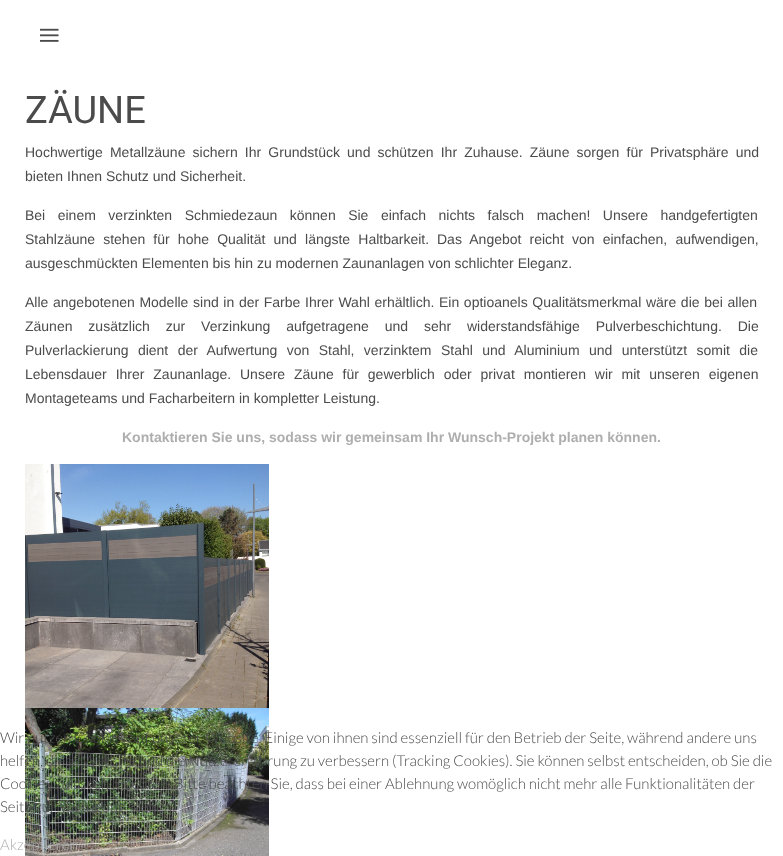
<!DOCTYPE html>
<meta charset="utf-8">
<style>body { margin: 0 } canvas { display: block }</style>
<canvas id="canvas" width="783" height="856"></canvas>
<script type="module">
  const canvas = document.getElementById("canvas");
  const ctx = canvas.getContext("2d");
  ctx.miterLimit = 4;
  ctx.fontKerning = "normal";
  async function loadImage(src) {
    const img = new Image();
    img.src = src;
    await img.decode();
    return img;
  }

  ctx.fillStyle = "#ffffff";
  ctx.fillRect(0, 0, 783, 856);
  ctx.drawImage(await loadImage("img1.png"), 40, 28, 19, 14);
  ctx.font = "38px Roboto";
  ctx.fillStyle = "#4b4b4b";
  ctx.fillText("ZÄUNE", 25, 123);
  ctx.wordSpacing = "3.25px";
  ctx.font = "14px Liberation Sans";
  ctx.fillText("Hochwertige Metallzäune sichern Ihr Grundstück und schützen Ihr Zuhause. Zäune sorgen für Privatsphäre und", 25, 157);
  ctx.wordSpacing = "0px";
  ctx.fillText("bieten Ihnen Schutz und Sicherheit.", 25, 181);
  ctx.wordSpacing = "8.6px";
  ctx.fillText("Bei einem verzinkten Schmiedezaun können Sie einfach nichts falsch machen! Unsere handgefertigten", 25, 220);
  ctx.wordSpacing = "4.25px";
  ctx.fillText("Stahlzäune stehen für hohe Qualität und längste Haltbarkeit.", 25, 244);
  ctx.fillText("Das Angebot reicht von einfachen, aufwendigen,", 437, 244);
  ctx.wordSpacing = "0px";
  ctx.fillText("ausgeschmückten Elementen bis hin zu modernen Zaunanlagen von schlichter Eleganz.", 25, 268);
  ctx.wordSpacing = "0.75px";
  ctx.fillText("Alle angebotenen Modelle sind in der Farbe Ihrer Wahl erhältlich. Ein optioanels Qualitätsmerkmal wäre die bei allen", 25, 307);
  ctx.wordSpacing = "12px";
  ctx.fillText("Zäunen zusätzlich zur Verzinkung aufgetragene und sehr widerstandsfähige Pulverbeschichtung. Die", 25, 331);
  ctx.wordSpacing = "5.5px";
  ctx.fillText("Pulverlackierung dient der Aufwertung von Stahl, verzinktem Stahl und Aluminium und unterstützt somit die", 25, 355);
  ctx.wordSpacing = "5px";
  ctx.fillText("Lebensdauer Ihrer Zaunanlage.", 25, 379);
  ctx.fillText("Unsere Zäune für gewerblich oder privat montieren wir mit unseren eigenen", 240, 379);
  ctx.wordSpacing = "0px";
  ctx.fillText("Montageteams und Facharbeitern in kompletter Leistung.", 25, 403);
  ctx.font = "bold 14px Liberation Sans";
  ctx.fillStyle = "#aeaeae";
  ctx.fillText("Kontaktieren Sie uns, sodass wir gemeinsam Ihr Wunsch-Projekt planen können.", 122, 442);
  ctx.drawImage(await loadImage("img2.png"), 25, 464, 244, 244);
  ctx.drawImage(await loadImage("img3.png"), 25, 708, 244, 148);
  ctx.font = "300 15px Lato";
  ctx.fillStyle = "#4b4b4b";
  ctx.fillText("Wir nutzen Cookies auf unserer Website. Einige von ihnen sind essenziell für den Betrieb der Seite, während andere uns", 0, 743);
  ctx.fillText("helfen, diese Website und die Nutzererfahrung zu verbessern (Tracking Cookies). Sie können selbst entscheiden, ob Sie die", 0, 766);
  ctx.fillText("Cookies zulassen möchten. Bitte beachten Sie, dass bei einer Ablehnung womöglich nicht mehr alle Funktionalitäten der", 0, 789);
  ctx.fillText("Seite zur Verfügung stehen.", 0, 812);
  ctx.fillStyle = "#aeaeae";
  ctx.fillText("Akzeptieren", 0, 850);
</script>
